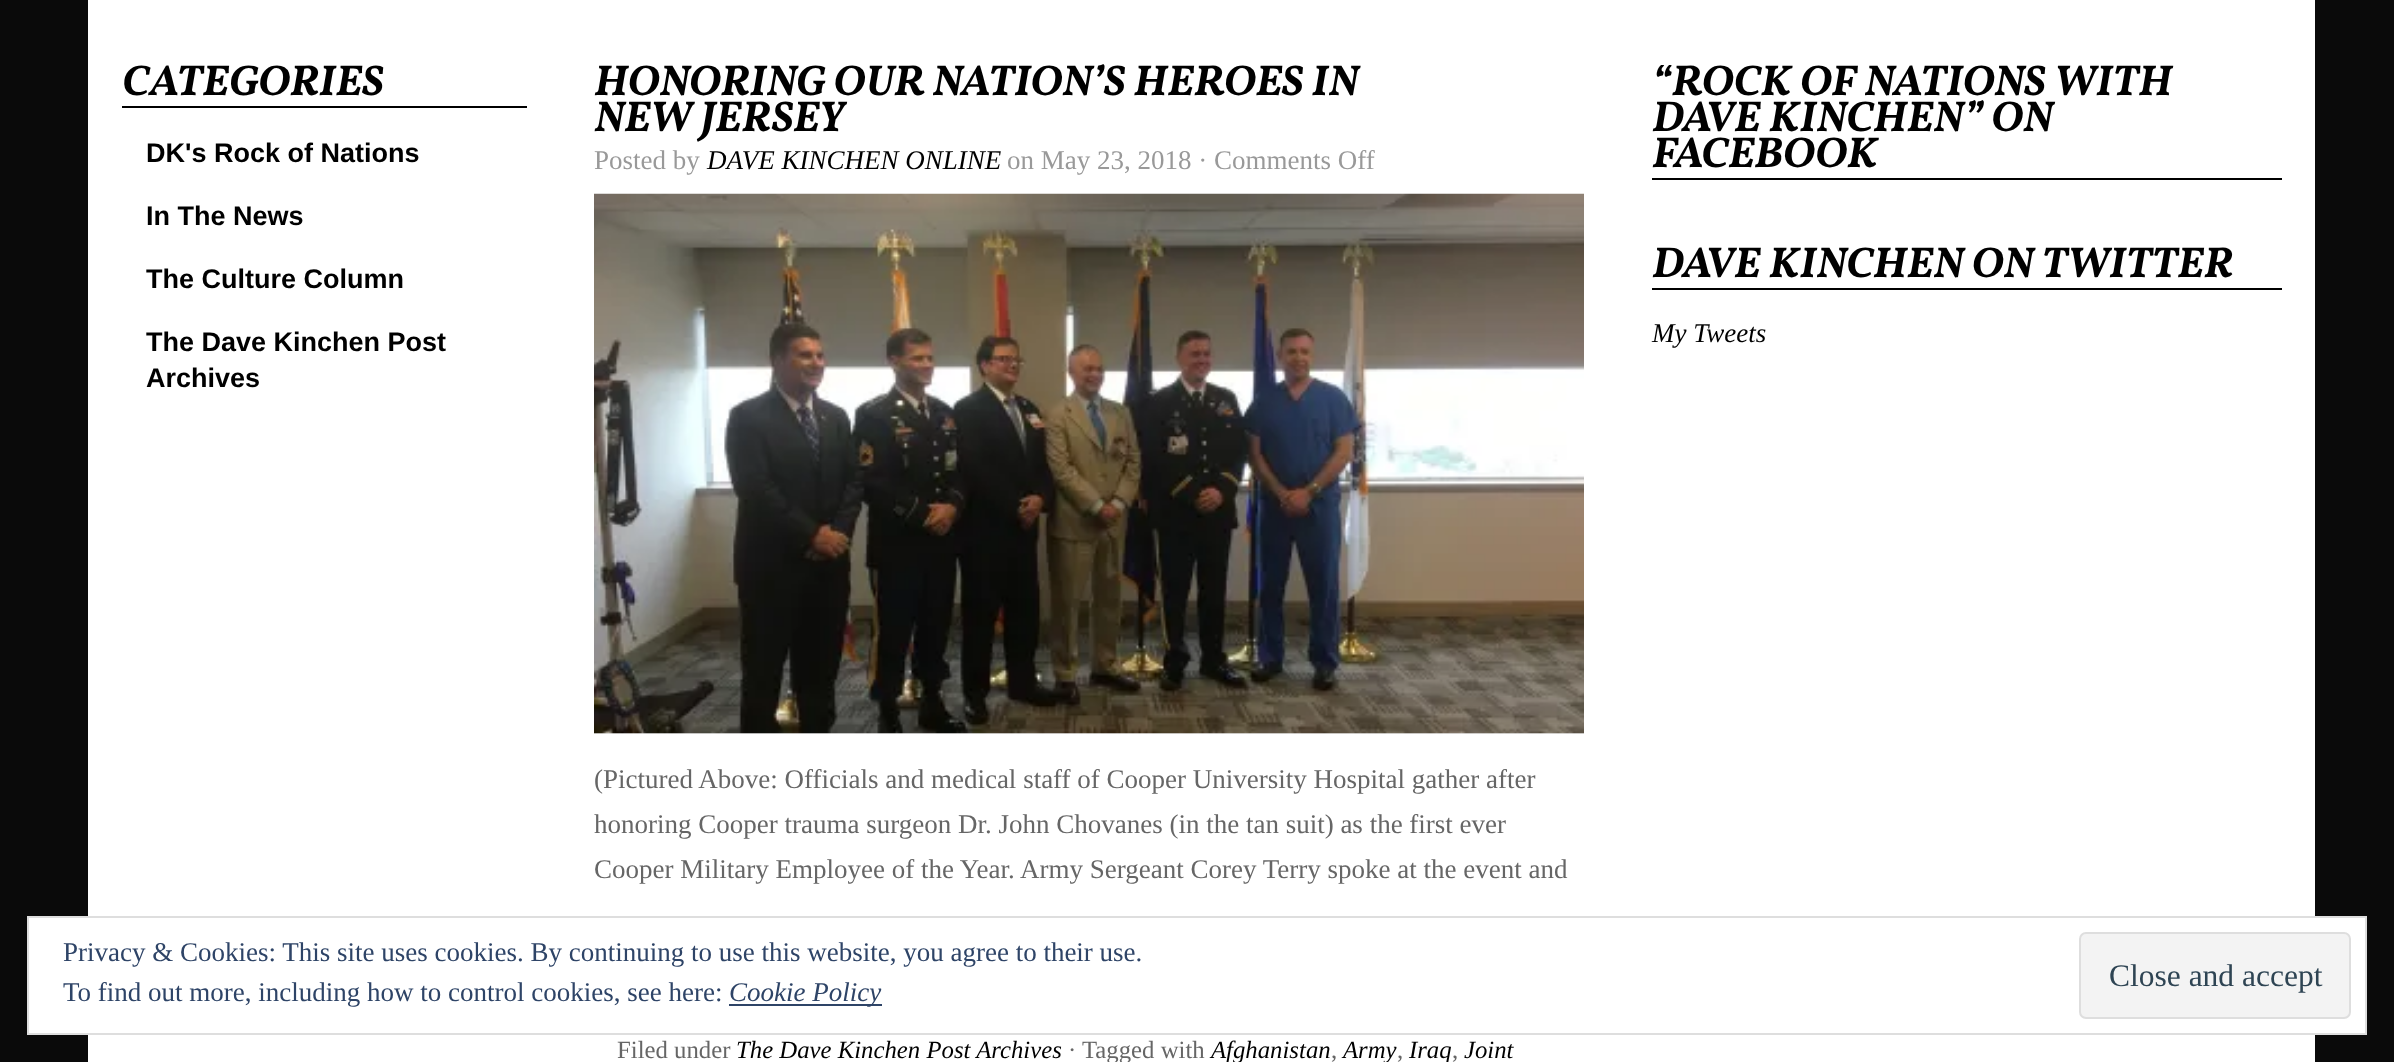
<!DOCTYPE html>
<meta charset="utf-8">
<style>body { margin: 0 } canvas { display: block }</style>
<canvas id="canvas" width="2394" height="1062"></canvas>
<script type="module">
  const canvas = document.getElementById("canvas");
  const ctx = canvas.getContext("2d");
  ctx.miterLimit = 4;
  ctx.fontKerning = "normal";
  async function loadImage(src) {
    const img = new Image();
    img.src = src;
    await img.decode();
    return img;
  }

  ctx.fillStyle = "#0a0a0a";
  ctx.fillRect(0, 0, 2394, 1062);
  ctx.fillStyle = "#ffffff";
  ctx.fillRect(88, 0, 2227, 1062);
  ctx.fillStyle = "#000000";
  ctx.fillRect(122, 106, 405, 2);
  ctx.font = "italic bold 43.25px Vollkorn";
  ctx.fillText("CATEGORIES", 122, 95);
  ctx.font = "bold 27px Liberation Sans";
  ctx.fillText("DK's Rock of Nations", 146, 162);
  ctx.fillText("In The News", 146, 225);
  ctx.fillText("The Culture Column", 146, 288);
  ctx.fillText("The Dave Kinchen Post", 146, 351);
  ctx.fillText("Archives", 146, 387);
  ctx.font = "italic bold 43.25px Vollkorn";
  ctx.fillText("HONORING OUR NATION’S HEROES IN", 594, 95);
  ctx.fillText("NEW JERSEY", 594, 131);
  ctx.font = "27px Liberation Serif";
  ctx.fillStyle = "#999999";
  ctx.fillText("Posted by", 594, 169);
  ctx.font = "italic 27px Liberation Serif";
  ctx.fillStyle = "#000000";
  ctx.fillText("DAVE KINCHEN ONLINE", 707, 169);
  ctx.font = "27px Liberation Serif";
  ctx.fillStyle = "#999999";
  ctx.fillText("on May 23, 2018 · Comments Off", 1007, 169);
  ctx.fillStyle = "#eeeeee";
  ctx.fillRect(594, 733, 990, 1);
  ctx.drawImage(await loadImage("img1.png"), 594, 193, 990, 541);
  ctx.fillStyle = "#666666";
  ctx.fillText("(Pictured Above: Officials and medical staff of Cooper University Hospital gather after", 594, 788);
  ctx.fillText("honoring Cooper trauma surgeon Dr. John Chovanes (in the tan suit) as the first ever", 594, 833);
  ctx.fillText("Cooper Military Employee of the Year. Army Sergeant Corey Terry spoke at the event and", 594, 878);
  ctx.font = "24.75px Liberation Serif";
  ctx.fillText("Filed under", 617, 1058);
  ctx.font = "italic 24.75px Liberation Serif";
  ctx.fillStyle = "#000000";
  ctx.fillText("The Dave Kinchen Post Archives", 736, 1058);
  ctx.font = "24.75px Liberation Serif";
  ctx.fillStyle = "#666666";
  ctx.fillText("· Tagged with", 1068, 1058);
  ctx.font = "italic 24.75px Liberation Serif";
  ctx.fillStyle = "#000000";
  ctx.fillText("Afghanistan", 1211, 1058);
  ctx.font = "24.75px Liberation Serif";
  ctx.fillStyle = "#666666";
  ctx.fillText(",", 1331, 1058);
  ctx.font = "italic 24.75px Liberation Serif";
  ctx.fillStyle = "#000000";
  ctx.fillText("Army", 1343, 1058);
  ctx.font = "24.75px Liberation Serif";
  ctx.fillStyle = "#666666";
  ctx.fillText(",", 1397, 1058);
  ctx.font = "italic 24.75px Liberation Serif";
  ctx.fillStyle = "#000000";
  ctx.fillText("Iraq", 1409, 1058);
  ctx.font = "24.75px Liberation Serif";
  ctx.fillStyle = "#666666";
  ctx.fillText(",", 1452, 1058);
  ctx.font = "italic 24.75px Liberation Serif";
  ctx.fillStyle = "#000000";
  ctx.fillText("Joint", 1464, 1058);
  ctx.fillRect(1652, 178, 630, 2);
  ctx.save();
  ctx.beginPath();
  ctx.rect(1652, 65, 630, 138);
  ctx.clip();
  ctx.font = "italic bold 43.25px Vollkorn";
  ctx.fillText("“ROCK OF NATIONS WITH", 1652, 95);
  ctx.restore();
  ctx.font = "italic bold 43.25px Vollkorn";
  ctx.fillText("DAVE KINCHEN” ON", 1652, 131);
  ctx.fillText("FACEBOOK", 1652, 167);
  ctx.fillRect(1652, 288, 630, 2);
  ctx.fillText("DAVE KINCHEN ON TWITTER", 1652, 277);
  ctx.font = "italic 27px Liberation Serif";
  ctx.fillText("My Tweets", 1652, 342);
  ctx.fillStyle = "#ffffff";
  ctx.beginPath();
  ctx.rect(28, 917, 2338, 117);
  ctx.fill();
  ctx.strokeStyle = "#dedede";
  ctx.lineWidth = 2;
  ctx.stroke();
  ctx.font = "27px Liberation Serif";
  ctx.fillStyle = "#2e4467";
  ctx.fillText("Privacy & Cookies: This site uses cookies. By continuing to use this website, you agree to their use.", 63, 961);
  ctx.fillText("To find out more, including how to control cookies, see here:", 63, 1001);
  ctx.fillRect(729, 1004, 153, 2);
  ctx.font = "italic 27px Liberation Serif";
  ctx.fillText("Cookie Policy", 729, 1001);
  ctx.fillStyle = "#f3f3f3";
  ctx.beginPath();
  ctx.roundRect(2080, 933, 270, 85, 6);
  ctx.fill();
  ctx.stroke();
  ctx.font = "31.5px Liberation Serif";
  ctx.fillStyle = "#2e4453";
  ctx.fillText("Close and accept", 2109, 986);
</script>
